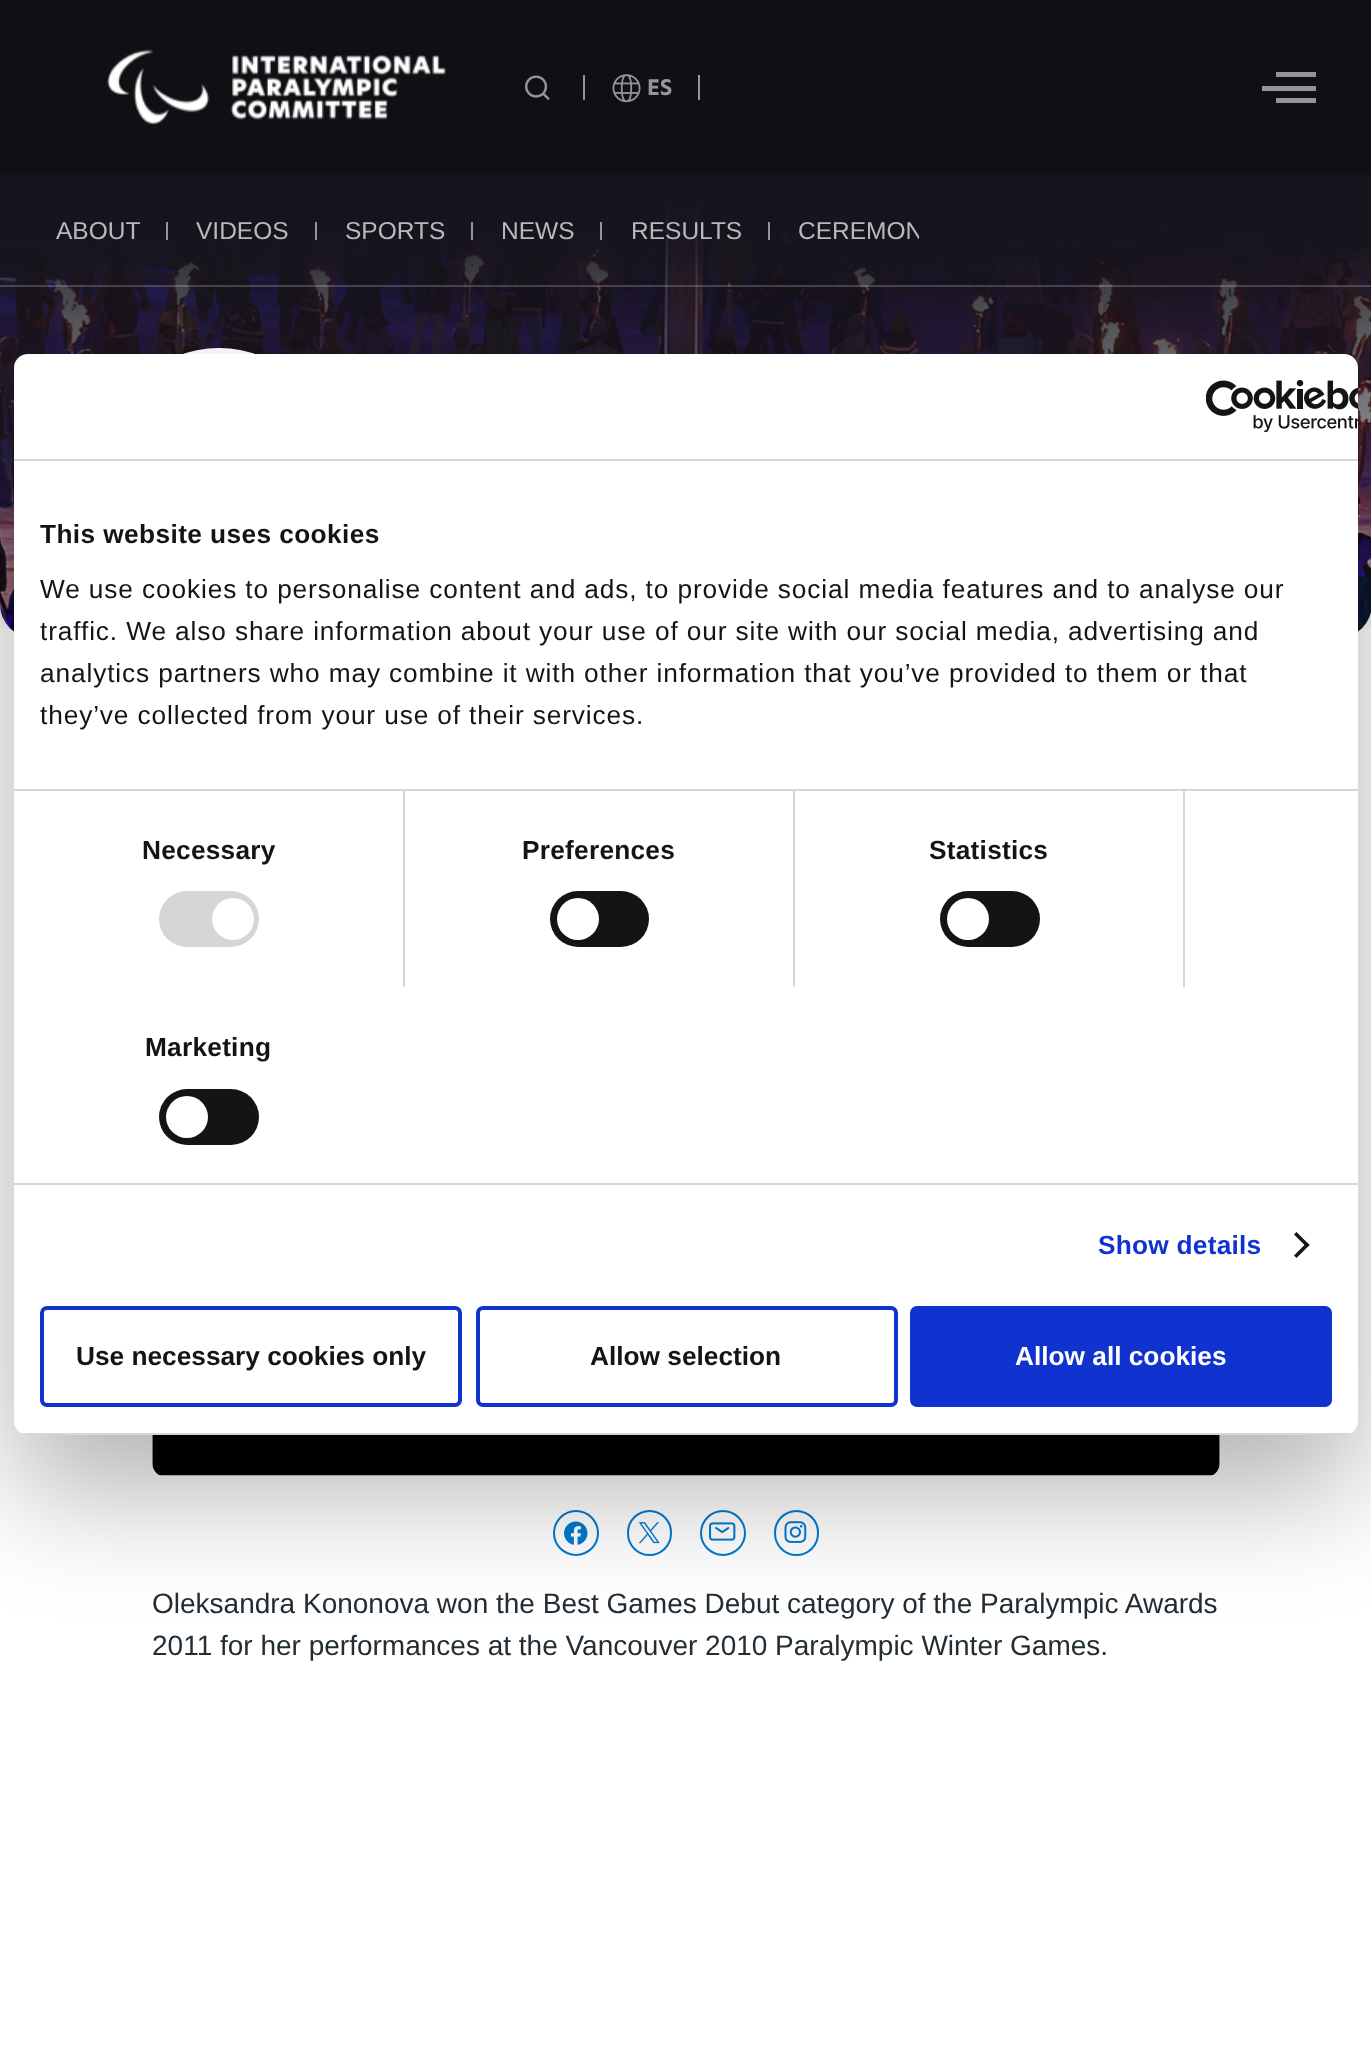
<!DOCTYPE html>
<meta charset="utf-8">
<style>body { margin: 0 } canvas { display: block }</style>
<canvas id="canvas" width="1371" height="2062"></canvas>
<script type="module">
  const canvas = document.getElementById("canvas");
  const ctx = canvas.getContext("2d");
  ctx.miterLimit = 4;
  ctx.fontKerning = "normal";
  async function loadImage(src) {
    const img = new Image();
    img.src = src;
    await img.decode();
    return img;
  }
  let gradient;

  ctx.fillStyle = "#ffffff";
  ctx.fillRect(0, 0, 1371, 2062);
  ctx.fillStyle = "#101014";
  ctx.fillRect(0, 0, 1371, 175);
  ctx.drawImage(await loadImage("img1.png"), 107, 49, 339, 76);
  ctx.drawImage(await loadImage("img2.png"), 525, 75, 25, 25);
  ctx.fillStyle = "#92969b";
  ctx.fillRect(583, 75, 2, 25);
  ctx.drawImage(await loadImage("img3.png"), 612, 74, 29, 29);
  ctx.font = "bold 21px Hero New";
  ctx.fillText("ES", 647, 95);
  ctx.fillRect(698, 75, 2, 25);
  ctx.fillRect(1276, 72, 40, 5);
  ctx.fillRect(1262, 86, 54, 5);
  ctx.fillRect(1276, 98, 40, 5);
  ctx.drawImage(await loadImage("img4.png"), 0, 201, 1371, 431);
  gradient = ctx.createLinearGradient(686, 175, 686, 639);
  gradient.addColorStop(0.05, "#15151e");
  gradient.addColorStop(1, "rgba(21, 21, 30, 0)");
  ctx.fillStyle = gradient;
  ctx.fillRect(0, 175, 1371, 454);
  ctx.fillStyle = "#ffffff";
  ctx.beginPath();
  ctx.arc(219, 462, 114, 0, Math.PI * 2);
  ctx.fill();
  ctx.fillStyle = "rgba(255, 255, 255, 0.2)";
  ctx.fillRect(0, 285, 1371, 2);
  ctx.font = "24.5px Liberation Sans";
  ctx.fillStyle = "#b9b9bc";
  ctx.fillText("ABOUT", 56, 239);
  ctx.fillStyle = "#92969b";
  ctx.fillRect(166, 222, 2, 18);
  ctx.fillStyle = "#b9b9bc";
  ctx.fillText("VIDEOS", 196, 239);
  ctx.fillStyle = "#92969b";
  ctx.fillRect(315, 222, 2, 18);
  ctx.fillStyle = "#b9b9bc";
  ctx.fillText("SPORTS", 345, 239);
  ctx.fillStyle = "#92969b";
  ctx.fillRect(471, 222, 2, 18);
  ctx.fillStyle = "#b9b9bc";
  ctx.fillText("NEWS", 501, 239);
  ctx.fillStyle = "#92969b";
  ctx.fillRect(600, 222, 2, 18);
  ctx.fillStyle = "#b9b9bc";
  ctx.fillText("RESULTS", 631, 239);
  ctx.fillStyle = "#92969b";
  ctx.fillRect(768, 222, 2, 18);
  ctx.save();
  ctx.beginPath();
  ctx.rect(56, 0, 863, 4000);
  ctx.clip();
  ctx.fillStyle = "#b9b9bc";
  ctx.fillText("CEREMON", 798, 239);
  ctx.restore();
  ctx.drawImage(await loadImage("img5.png"), 152, 1435, 1068, 41);
  ctx.beginPath();
  ctx.arc(576, 1533, 22, 0, Math.PI * 2);
  ctx.strokeStyle = "#007ad1";
  ctx.lineWidth = 2;
  ctx.stroke();
  ctx.drawImage(await loadImage("img6.png"), 564, 1521, 24, 24);
  ctx.beginPath();
  ctx.roundRect(628, 1511, 43, 44, 21.5);
  ctx.stroke();
  ctx.drawImage(await loadImage("img7.png"), 638, 1522, 22, 22);
  ctx.beginPath();
  ctx.arc(723, 1533, 22, 0, Math.PI * 2);
  ctx.stroke();
  ctx.drawImage(await loadImage("img8.png"), 709, 1522, 27, 19);
  ctx.beginPath();
  ctx.roundRect(775, 1511, 43, 44, 21.5);
  ctx.stroke();
  ctx.drawImage(await loadImage("img9.png"), 784, 1521, 23, 22);
  ctx.font = "28px Liberation Sans";
  ctx.fillStyle = "#232d34";
  ctx.fillText("Oleksandra Kononova won the Best Games Debut category of the Paralympic Awards", 152, 1613);
  ctx.fillText("2011 for her performances at the Vancouver 2010 Paralympic Winter Games.", 152, 1655);
  ctx.fillStyle = "rgba(0, 0, 0, 0.3)";
  ctx.filter = "blur(59.5px)";
  ctx.beginPath();
  ctx.roundRect(14, 410, 1344, 1081, 14);
  ctx.fill();
  ctx.filter = "none";
  ctx.fillStyle = "#ffffff";
  ctx.beginPath();
  ctx.roundRect(14, 354, 1344, 1081, 14);
  ctx.fill();
  ctx.fillStyle = "#d6d6d6";
  ctx.fillRect(14, 459, 1344, 2);
  ctx.drawImage(await loadImage("img10.png"), 1206, 380, 152, 52);
  ctx.fillRect(14, 789, 1344, 2);
  ctx.letterSpacing = "0.4px";
  ctx.font = "bold 26.25px Liberation Sans";
  ctx.fillStyle = "#141414";
  ctx.fillText("This website uses cookies", 40, 543);
  ctx.letterSpacing = "0.88px";
  ctx.font = "26.25px Liberation Sans";
  ctx.fillText("We use cookies to personalise content and ads, to provide social media features and to analyse our", 40, 598);
  ctx.fillText("traffic. We also share information about your use of our site with our social media, advertising and", 40, 640);
  ctx.fillText("analytics partners who may combine it with other information that you’ve provided to them or that", 40, 682);
  ctx.fillText("they’ve collected from your use of their services.", 40, 724);
  ctx.fillStyle = "#d6d6d6";
  ctx.fillRect(14, 1183, 1344, 2);
  ctx.fillRect(403, 791, 2, 196);
  ctx.letterSpacing = "0.25px";
  ctx.font = "bold 26.25px Liberation Sans";
  ctx.fillStyle = "#141414";
  ctx.fillText("Necessary", 142, 859);
  ctx.fillStyle = "#d6d6d6";
  ctx.beginPath();
  ctx.roundRect(159, 891, 100, 56, 28);
  ctx.fill();
  ctx.fillStyle = "#ffffff";
  ctx.beginPath();
  ctx.arc(233, 919, 21, 0, Math.PI * 2);
  ctx.fill();
  ctx.fillStyle = "#d6d6d6";
  ctx.fillRect(793, 791, 2, 196);
  ctx.fillStyle = "#141414";
  ctx.fillText("Preferences", 522, 859);
  ctx.beginPath();
  ctx.roundRect(550, 891, 99, 56, 28);
  ctx.fill();
  ctx.fillStyle = "#ffffff";
  ctx.beginPath();
  ctx.arc(578, 919, 21, 0, Math.PI * 2);
  ctx.fill();
  ctx.fillStyle = "#d6d6d6";
  ctx.fillRect(1183, 791, 2, 196);
  ctx.fillStyle = "#141414";
  ctx.fillText("Statistics", 929, 859);
  ctx.beginPath();
  ctx.roundRect(940, 891, 100, 56, 28);
  ctx.fill();
  ctx.fillStyle = "#ffffff";
  ctx.beginPath();
  ctx.arc(968, 919, 21, 0, Math.PI * 2);
  ctx.fill();
  ctx.fillStyle = "#141414";
  ctx.fillText("Marketing", 145, 1056);
  ctx.beginPath();
  ctx.roundRect(159, 1089, 100, 56, 28);
  ctx.fill();
  ctx.fillStyle = "#ffffff";
  ctx.beginPath();
  ctx.arc(187, 1117, 21, 0, Math.PI * 2);
  ctx.fill();
  ctx.fillStyle = "#1032cf";
  ctx.fillText("Show details", 1098, 1254);
  ctx.fillStyle = "#141414";
  ctx.beginPath();
  ctx.moveTo(1296.5, 1232);
  ctx.lineTo(1309.5, 1245);
  ctx.lineTo(1307, 1247.5);
  ctx.lineTo(1294, 1234.5);
  ctx.closePath();
  ctx.fill();
  ctx.beginPath();
  ctx.moveTo(1307, 1242.5);
  ctx.lineTo(1309.5, 1245);
  ctx.lineTo(1296.5, 1258);
  ctx.lineTo(1294, 1255.5);
  ctx.closePath();
  ctx.fill();
  ctx.save();
  ctx.beginPath();
  ctx.roundRect(14, 354, 1344, 1081, 14);
  ctx.clip();
  ctx.fillStyle = "#d6d6d6";
  ctx.fillRect(14, 1433, 1344, 2);
  ctx.restore();
  ctx.beginPath();
  ctx.roundRect(42, 1308, 418, 97, 5);
  ctx.strokeStyle = "#1032cf";
  ctx.lineWidth = 4;
  ctx.stroke();
  ctx.letterSpacing = "0px";
  ctx.fillText("Use necessary cookies only", 76, 1365);
  ctx.beginPath();
  ctx.roundRect(478, 1308, 418, 97, 5);
  ctx.stroke();
  ctx.fillText("Allow selection", 590, 1365);
  ctx.fillStyle = "#1032cf";
  ctx.beginPath();
  ctx.roundRect(912, 1308, 418, 97, 5);
  ctx.fill();
  ctx.stroke();
  ctx.fillStyle = "#ffffff";
  ctx.fillText("Allow all cookies", 1015, 1365);
</script>
